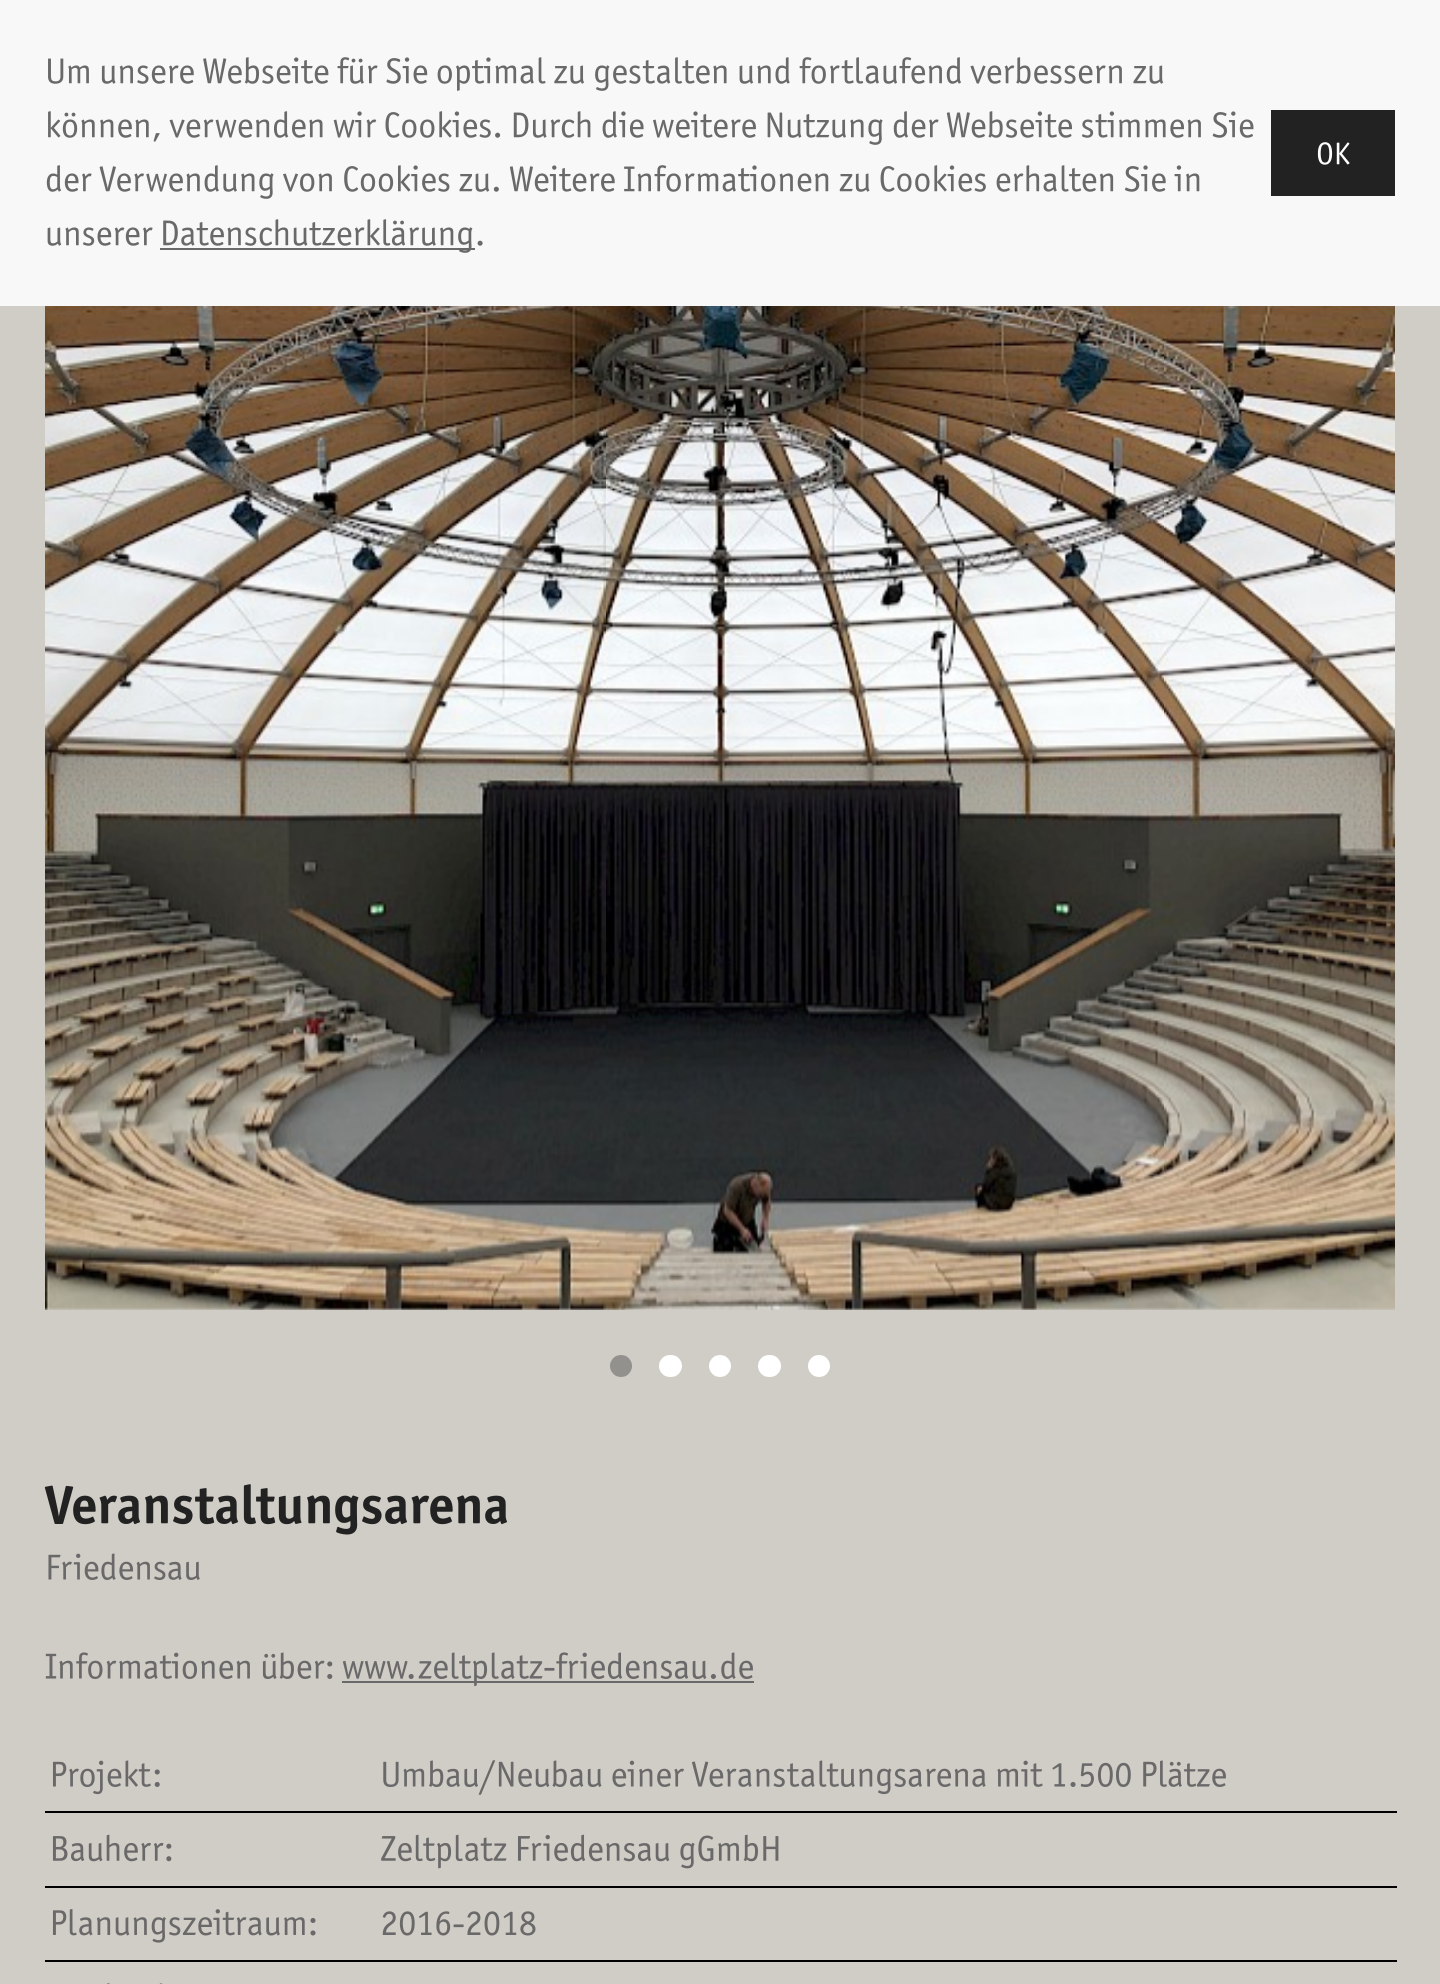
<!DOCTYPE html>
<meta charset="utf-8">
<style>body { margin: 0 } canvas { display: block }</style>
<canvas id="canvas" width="1440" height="1984"></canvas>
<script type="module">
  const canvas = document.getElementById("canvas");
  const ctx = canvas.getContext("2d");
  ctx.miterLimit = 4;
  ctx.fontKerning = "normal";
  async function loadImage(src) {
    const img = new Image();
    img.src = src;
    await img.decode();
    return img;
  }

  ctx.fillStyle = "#d0ccc6";
  ctx.fillRect(0, 0, 1440, 1984);
  ctx.fillStyle = "#f8f8f8";
  ctx.fillRect(0, 0, 1440, 306);
  ctx.drawImage(await loadImage("img1.png"), 48, 57, 1116, 34);
  ctx.drawImage(await loadImage("img2.png"), 48, 111, 1206, 34);
  ctx.drawImage(await loadImage("img3.png"), 46, 165, 1154, 34);
  ctx.drawImage(await loadImage("img4.png"), 47, 227, 106, 19);
  ctx.fillStyle = "#696969";
  ctx.fillRect(160, 248, 315, 2);
  ctx.drawImage(await loadImage("img5.png"), 163, 219, 310, 34);
  ctx.drawImage(await loadImage("img6.png"), 477, 240, 6, 6);
  ctx.fillStyle = "#222222";
  ctx.fillRect(1271, 110, 124, 86);
  ctx.drawImage(await loadImage("img7.png"), 1317, 142, 33, 23);
  ctx.drawImage(await loadImage("img8.png"), 45, 306, 1350, 1004);
  ctx.fillStyle = "#92918e";
  ctx.beginPath();
  ctx.arc(621, 1366, 11, 0, Math.PI * 2);
  ctx.fill();
  ctx.fillStyle = "#ffffff";
  ctx.beginPath();
  ctx.roundRect(659, 1355, 23, 22, 11);
  ctx.fill();
  ctx.beginPath();
  ctx.arc(720, 1366, 11, 0, Math.PI * 2);
  ctx.fill();
  ctx.beginPath();
  ctx.roundRect(758, 1355, 23, 22, 11);
  ctx.fill();
  ctx.beginPath();
  ctx.arc(819, 1366, 11, 0, Math.PI * 2);
  ctx.fill();
  ctx.drawImage(await loadImage("img9.png"), 44, 1484, 463, 51);
  ctx.drawImage(await loadImage("img10.png"), 48, 1553, 152, 27);
  ctx.drawImage(await loadImage("img11.png"), 45, 1652, 288, 27);
  ctx.fillStyle = "#696969";
  ctx.fillRect(342, 1681, 412, 2);
  ctx.drawImage(await loadImage("img12.png"), 342, 1652, 411, 35);
  ctx.fillStyle = "#000000";
  ctx.fillRect(45, 1811, 1352, 2);
  ctx.drawImage(await loadImage("img13.png"), 383, 1760, 843, 35);
  ctx.drawImage(await loadImage("img14.png"), 52, 1760, 108, 35);
  ctx.fillRect(45, 1886, 1352, 2);
  ctx.drawImage(await loadImage("img15.png"), 381, 1834, 398, 35);
  ctx.drawImage(await loadImage("img16.png"), 52, 1834, 120, 28);
  ctx.drawImage(await loadImage("img17.png"), 52, 1909, 264, 34);
  ctx.fillRect(45, 1960, 1352, 2);
  ctx.drawImage(await loadImage("img18.png"), 382, 1911, 154, 25);
  ctx.drawImage(await loadImage("img19.png"), 106, 1983, 57, 1);
</script>
